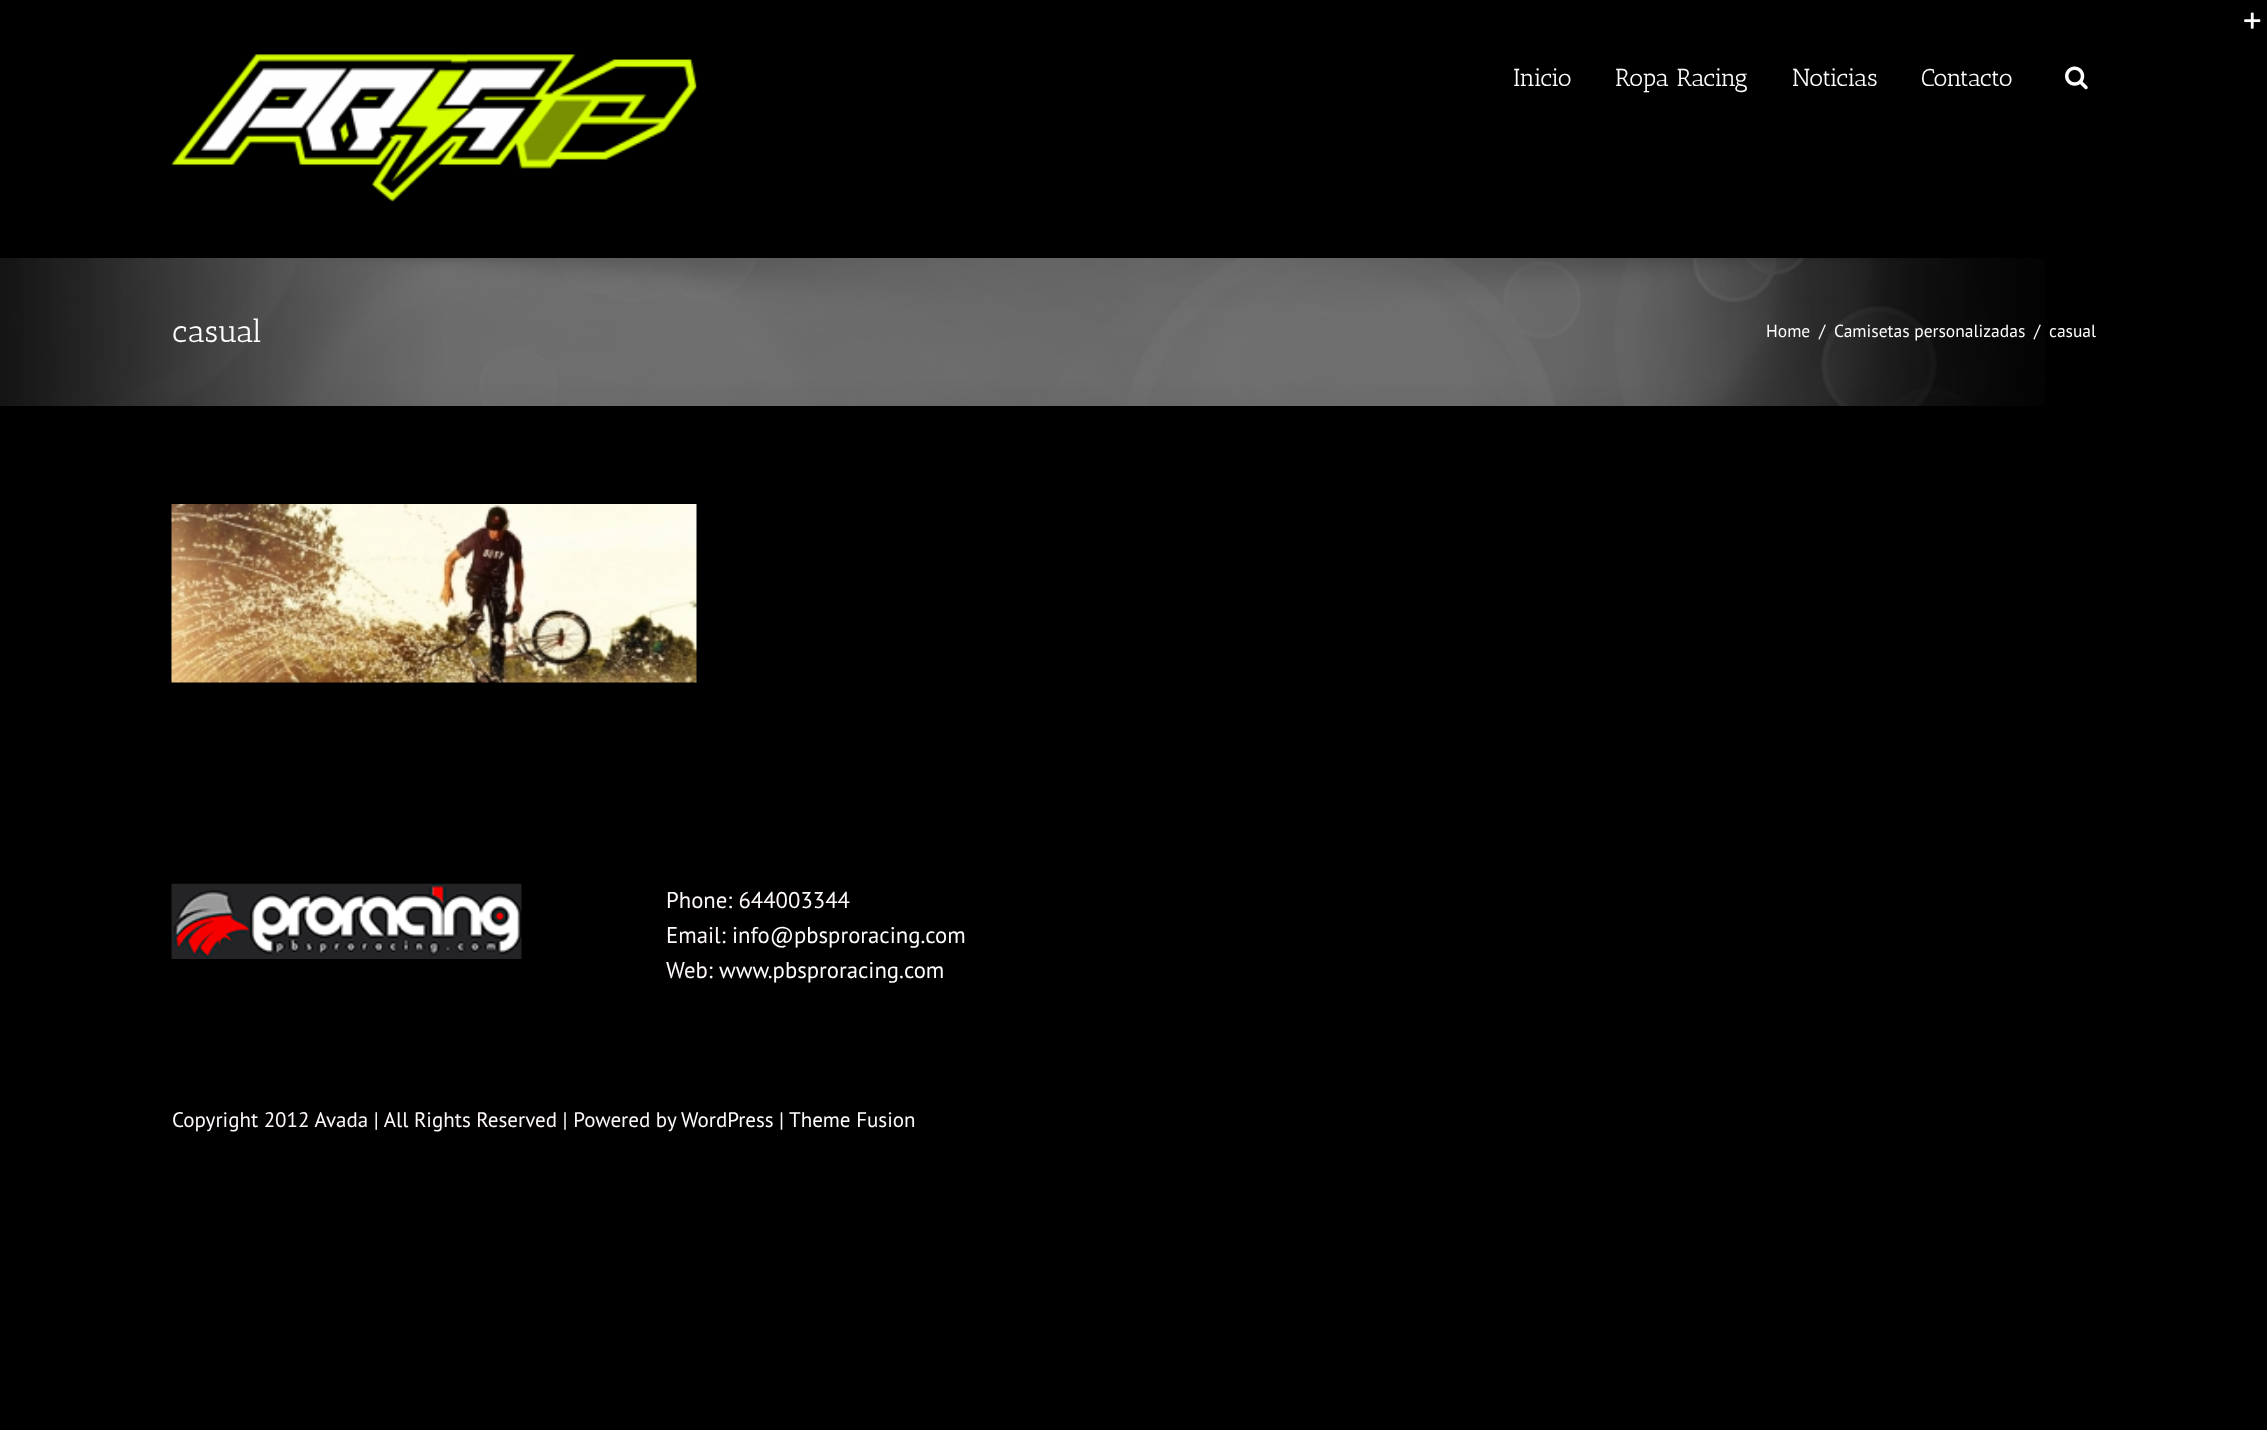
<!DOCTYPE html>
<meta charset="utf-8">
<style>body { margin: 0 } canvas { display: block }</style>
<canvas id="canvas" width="2267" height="1430"></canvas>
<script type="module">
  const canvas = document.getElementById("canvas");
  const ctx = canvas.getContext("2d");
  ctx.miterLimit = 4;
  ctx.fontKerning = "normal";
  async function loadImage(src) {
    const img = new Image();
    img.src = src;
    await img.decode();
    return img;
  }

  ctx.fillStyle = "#000000";
  ctx.fillRect(0, 0, 2267, 1430);
  ctx.drawImage(await loadImage("img1.png"), 2244, 12, 17, 17);
  ctx.drawImage(await loadImage("img2.png"), 171, 54, 526, 148);
  ctx.font = "24.5px Antic Slab";
  ctx.fillStyle = "#ffffff";
  ctx.fillText("Inicio", 1513, 86);
  ctx.fillText("Ropa Racing", 1615, 86);
  ctx.fillText("Noticias", 1792, 86);
  ctx.fillText("Contacto", 1921, 86);
  ctx.drawImage(await loadImage("img3.png"), 2065, 66, 23, 24);
  ctx.drawImage(await loadImage("img4.png"), 0, 258, 2045, 148);
  ctx.font = "31.5px Antic Slab";
  ctx.fillText("casual", 172, 342);
  ctx.font = "17.5px PT Sans";
  ctx.fillText("Home", 1766, 337);
  ctx.fillText("/", 1819, 337);
  ctx.fillText("Camisetas personalizadas", 1834, 337);
  ctx.fillText("/", 2034, 337);
  ctx.fillText("casual", 2049, 337);
  ctx.drawImage(await loadImage("img5.png"), 171, 504, 526, 179);
  ctx.drawImage(await loadImage("img6.png"), 171, 883, 351, 76);
  ctx.font = "22.75px PT Sans";
  ctx.fillStyle = "#fff9f9";
  ctx.fillText("Phone: 644003344", 666, 908);
  ctx.fillText("Email:", 666, 943);
  ctx.fillStyle = "#ffffff";
  ctx.fillText("info@pbsproracing.com", 732, 943);
  ctx.fillStyle = "#fff9f9";
  ctx.fillText("Web:", 666, 978);
  ctx.fillStyle = "#ffffff";
  ctx.fillText("www.pbsproracing.com", 719, 978);
  ctx.font = "21px PT Sans";
  ctx.fillStyle = "#fff9f9";
  ctx.fillText("Copyright 2012 Avada | All Rights Reserved | Powered by", 172, 1127);
  ctx.fillStyle = "#ffffff";
  ctx.fillText("WordPress", 681, 1127);
  ctx.fillStyle = "#fff9f9";
  ctx.fillText("|", 779, 1127);
  ctx.fillStyle = "#ffffff";
  ctx.fillText("Theme Fusion", 789, 1127);
</script>
